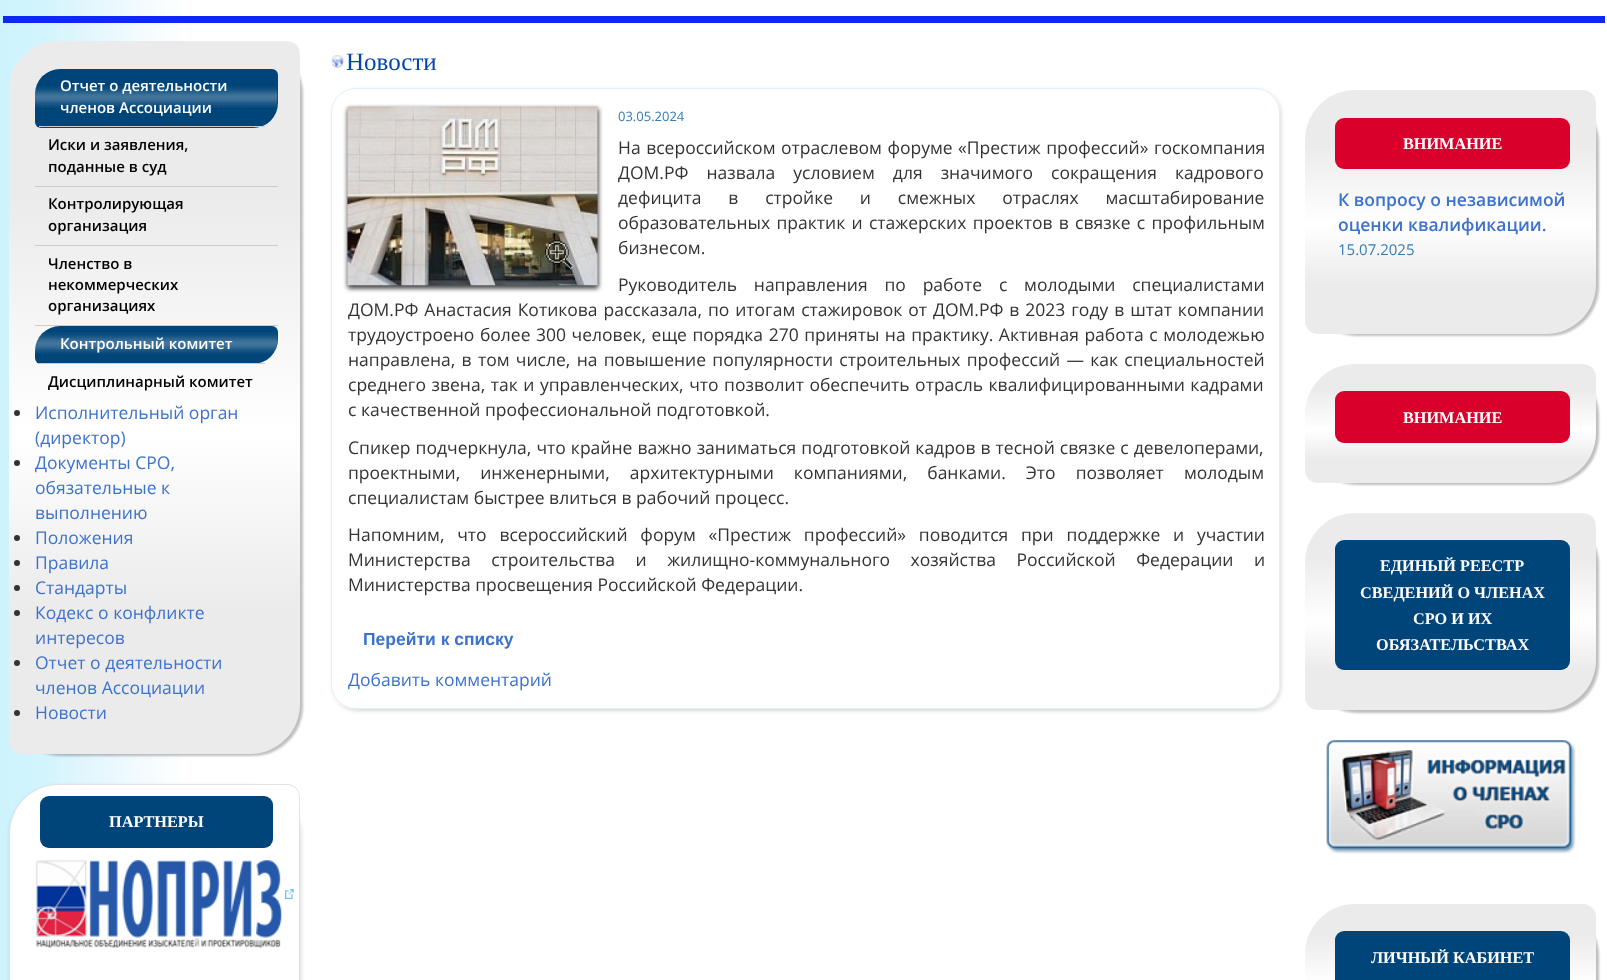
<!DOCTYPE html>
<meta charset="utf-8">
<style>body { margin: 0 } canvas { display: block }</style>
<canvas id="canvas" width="1607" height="980"></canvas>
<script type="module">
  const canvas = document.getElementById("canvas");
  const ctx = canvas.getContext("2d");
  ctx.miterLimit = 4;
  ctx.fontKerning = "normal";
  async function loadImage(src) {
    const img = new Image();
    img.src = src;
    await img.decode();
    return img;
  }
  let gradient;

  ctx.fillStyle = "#ffffff";
  ctx.fillRect(0, 0, 1607, 980);
  ctx.drawImage(await loadImage("img1.png"), 0, 0, 180, 980);
  ctx.fillStyle = "rgba(0, 0, 0, 0.25)";
  ctx.filter = "blur(1px)";
  ctx.beginPath();
  ctx.roundRect(11, 44, 292, 712, 50);
  ctx.fill();
  ctx.filter = "none";
  gradient = ctx.createLinearGradient(9, 754, 9, 41);
  gradient.addColorStop(0.2, "#ecebeb");
  gradient.addColorStop(0.45, "#ffffff");
  gradient.addColorStop(0.78, "#ecebeb");
  ctx.fillStyle = gradient;
  ctx.beginPath();
  ctx.roundRect(9, 41, 291, 713, [50, 13, 50, 13]);
  ctx.fill();
  ctx.fillStyle = "#004579";
  ctx.beginPath();
  ctx.roundRect(35, 69, 243, 59, [25, 6, 25, 6]);
  ctx.fill();
  ctx.drawImage(await loadImage("img2.png"), 35, 86, 243, 22);
  ctx.fillStyle = "#cccccc";
  ctx.fillRect(39, 126, 226, 1);
  ctx.font = "600 15px Open Sans";
  ctx.fillStyle = "#ffffff";
  ctx.fillText("Отчет о деятельности", 60, 91);
  ctx.fillText("членов Ассоциации", 60, 113);
  ctx.fillStyle = "#cccccc";
  ctx.fillRect(35, 186, 243, 1);
  ctx.fillStyle = "#000000";
  ctx.fillText("Иски и заявления,", 48, 150);
  ctx.fillText("поданные в суд", 48, 172);
  ctx.fillStyle = "#cccccc";
  ctx.fillRect(35, 245, 243, 1);
  ctx.fillStyle = "#000000";
  ctx.fillText("Контролирующая", 48, 209);
  ctx.fillText("организация", 48, 231);
  ctx.fillStyle = "#cccccc";
  ctx.fillRect(35, 325, 243, 1);
  ctx.fillStyle = "#000000";
  ctx.fillText("Членство в", 48, 269);
  ctx.fillText("некоммерческих", 48, 290);
  ctx.fillText("организациях", 48, 311);
  ctx.fillStyle = "#004579";
  ctx.beginPath();
  ctx.roundRect(35, 326, 243, 38, [25, 6, 25, 6]);
  ctx.fill();
  ctx.drawImage(await loadImage("img3.png"), 35, 332, 243, 22);
  ctx.fillStyle = "#cccccc";
  ctx.fillRect(39, 363, 226, 1);
  ctx.fillStyle = "#ffffff";
  ctx.fillText("Контрольный комитет", 60, 349);
  ctx.fillStyle = "#000000";
  ctx.fillText("Дисциплинарный комитет", 48, 387);
  ctx.fillStyle = "#333333";
  ctx.beginPath();
  ctx.arc(17, 413, 3, 0, Math.PI * 2);
  ctx.fill();
  ctx.font = "17.5px Open Sans";
  ctx.fillStyle = "#3c72cc";
  ctx.fillText("Исполнительный орган", 35, 419);
  ctx.fillText("(директор)", 35, 444);
  ctx.fillStyle = "#333333";
  ctx.beginPath();
  ctx.arc(17, 463, 3, 0, Math.PI * 2);
  ctx.fill();
  ctx.fillStyle = "#3c72cc";
  ctx.fillText("Документы СРО,", 35, 469);
  ctx.fillText("обязательные к", 35, 494);
  ctx.fillText("выполнению", 35, 519);
  ctx.fillStyle = "#333333";
  ctx.beginPath();
  ctx.arc(17, 538, 3, 0, Math.PI * 2);
  ctx.fill();
  ctx.fillStyle = "#3c72cc";
  ctx.fillText("Положения", 35, 544);
  ctx.fillStyle = "#333333";
  ctx.beginPath();
  ctx.arc(17, 563, 3, 0, Math.PI * 2);
  ctx.fill();
  ctx.fillStyle = "#3c72cc";
  ctx.fillText("Правила", 35, 569);
  ctx.fillStyle = "#333333";
  ctx.beginPath();
  ctx.arc(17, 588, 3, 0, Math.PI * 2);
  ctx.fill();
  ctx.fillStyle = "#3c72cc";
  ctx.fillText("Стандарты", 35, 594);
  ctx.fillStyle = "#333333";
  ctx.beginPath();
  ctx.arc(17, 613, 3, 0, Math.PI * 2);
  ctx.fill();
  ctx.fillStyle = "#3c72cc";
  ctx.fillText("Кодекс о конфликте", 35, 619);
  ctx.fillText("интересов", 35, 644);
  ctx.fillStyle = "#333333";
  ctx.beginPath();
  ctx.arc(17, 663, 3, 0, Math.PI * 2);
  ctx.fill();
  ctx.fillStyle = "#3c72cc";
  ctx.fillText("Отчет о деятельности", 35, 669);
  ctx.fillText("членов Ассоциации", 35, 694);
  ctx.fillStyle = "#333333";
  ctx.beginPath();
  ctx.arc(17, 713, 3, 0, Math.PI * 2);
  ctx.fill();
  ctx.fillStyle = "#3c72cc";
  ctx.fillText("Новости", 35, 719);
  ctx.fillStyle = "rgba(0, 0, 0, 0.15)";
  ctx.filter = "blur(2px)";
  ctx.beginPath();
  ctx.roundRect(10, 786, 291, 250, 50);
  ctx.fill();
  ctx.filter = "none";
  ctx.fillStyle = "#ffffff";
  ctx.beginPath();
  ctx.moveTo(59, 784.5);
  ctx.lineTo(287, 784.5);
  ctx.bezierCurveTo(294, 784.5, 299.5, 790, 299.5, 797);
  ctx.lineTo(299.5, 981);
  ctx.bezierCurveTo(299.5, 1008.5, 277.5, 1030.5, 250, 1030.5);
  ctx.lineTo(22, 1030.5);
  ctx.bezierCurveTo(15, 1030.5, 9.5, 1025, 9.5, 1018);
  ctx.lineTo(9.5, 834);
  ctx.bezierCurveTo(9.5, 806.5, 31.5, 784.5, 59, 784.5);
  ctx.closePath();
  ctx.fill();
  ctx.strokeStyle = "#e3e3e3";
  ctx.stroke();
  ctx.fillStyle = "#004579";
  ctx.beginPath();
  ctx.roundRect(40, 796, 233, 52, 9);
  ctx.fill();
  ctx.font = "bold 16.25px Liberation Serif";
  ctx.fillStyle = "#ffffff";
  ctx.fillText("ПАРТНЕРЫ", 109, 827);
  ctx.drawImage(await loadImage("img4.png"), 36, 860, 246, 88);
  ctx.drawImage(await loadImage("img5.png"), 285, 889, 9, 10);
  ctx.drawImage(await loadImage("img6.png"), 331, 55, 13, 13);
  ctx.font = "25px Liberation Serif";
  ctx.fillStyle = "#0445ad";
  ctx.fillText("Новости", 346, 70);
  ctx.save();
  ctx.beginPath();
  ctx.moveTo(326, 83);
  ctx.lineTo(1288, 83);
  ctx.lineTo(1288, 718);
  ctx.lineTo(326, 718);
  ctx.closePath();
  ctx.moveTo(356, 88);
  ctx.lineTo(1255, 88);
  ctx.bezierCurveTo(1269, 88, 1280, 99, 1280, 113);
  ctx.lineTo(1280, 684);
  ctx.bezierCurveTo(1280, 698, 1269, 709, 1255, 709);
  ctx.lineTo(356, 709);
  ctx.bezierCurveTo(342, 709, 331, 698, 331, 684);
  ctx.lineTo(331, 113);
  ctx.bezierCurveTo(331, 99, 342, 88, 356, 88);
  ctx.closePath();
  ctx.clip("evenodd");
  ctx.fillStyle = "rgba(0, 0, 0, 0.15)";
  ctx.filter = "blur(2px)";
  ctx.beginPath();
  ctx.roundRect(333, 90, 948, 621, 25);
  ctx.fill();
  ctx.filter = "none";
  ctx.restore();
  ctx.beginPath();
  ctx.roundRect(331.5, 88.5, 948, 620, 24.5);
  ctx.strokeStyle = "#e2effb";
  ctx.stroke();
  ctx.fillStyle = "rgba(0, 0, 0, 0.5)";
  ctx.filter = "blur(2.5px)";
  ctx.beginPath();
  ctx.rect(348, 109, 250, 179);
  ctx.fill();
  ctx.filter = "none";
  ctx.filter = "blur(2.5px)";
  ctx.beginPath();
  ctx.rect(348, 109, 250, 179);
  ctx.fill();
  ctx.filter = "none";
  ctx.drawImage(await loadImage("img7.png"), 347, 106, 251, 180);
  ctx.drawImage(await loadImage("img8.png"), 545, 240, 29, 30);
  ctx.font = "13px Open Sans";
  ctx.fillStyle = "#357cb5";
  ctx.fillText("03.05.2024", 618, 121);
  ctx.wordSpacing = "1px";
  ctx.font = "17.5px Open Sans";
  ctx.fillStyle = "#333333";
  ctx.fillText("На всероссийском отраслевом форуме «Престиж профессий» госкомпания", 618, 154);
  ctx.wordSpacing = "13.5px";
  ctx.fillText("ДОМ.РФ назвала условием для значимого сокращения кадрового", 618, 179);
  ctx.wordSpacing = "22.25px";
  ctx.fillText("дефицита в стройке и смежных отраслях масштабирование", 618, 204);
  ctx.wordSpacing = "1.75px";
  ctx.fillText("образовательных практик и стажерских проектов в связке с профильным", 618, 229);
  ctx.wordSpacing = "0px";
  ctx.fillText("бизнесом.", 618, 254);
  ctx.wordSpacing = "12.25px";
  ctx.fillText("Руководитель направления по работе с молодыми специалистами", 618, 291);
  ctx.wordSpacing = "1.4px";
  ctx.fillText("ДОМ.РФ Анастасия Котикова рассказала, по итогам стажировок от ДОМ.РФ в 2023 году в штат компании", 348, 316);
  ctx.wordSpacing = "1px";
  ctx.fillText("трудоустроено более 300 человек, еще порядка 270 приняты на практику. Активная работа с молодежью", 348, 341);
  ctx.wordSpacing = "1.75px";
  ctx.fillText("направлена, в том числе, на повышение популярности строительных профессий — как специальностей", 348, 366);
  ctx.wordSpacing = "1px";
  ctx.fillText("среднего звена, так и управленческих, что позволит обеспечить отрасль квалифицированными кадрами", 348, 391);
  ctx.wordSpacing = "0px";
  ctx.fillText("с качественной профессиональной подготовкой.", 348, 416);
  ctx.wordSpacing = "0.5px";
  ctx.fillText("Спикер подчеркнула, что крайне важно заниматься подготовкой кадров в тесной связке с девелоперами,", 348, 454);
  ctx.wordSpacing = "15.5px";
  ctx.fillText("проектными, инженерными, архитектурными компаниями, банками. Это позволяет молодым", 348, 479);
  ctx.wordSpacing = "0px";
  ctx.fillText("специалистам быстрее влиться в рабочий процесс.", 348, 504);
  ctx.wordSpacing = "8.25px";
  ctx.fillText("Напомним, что всероссийский форум «Престиж профессий» поводится при поддержке и участии", 348, 541);
  ctx.wordSpacing = "16px";
  ctx.fillText("Министерства строительства и жилищно-коммунального хозяйства Российской Федерации и", 348, 566);
  ctx.wordSpacing = "0px";
  ctx.fillText("Министерства просвещения Российской Федерации.", 348, 591);
  ctx.font = "bold 17.5px Liberation Sans";
  ctx.fillStyle = "#3c72cc";
  ctx.fillText("Перейти к списку", 363, 645);
  ctx.font = "17.5px Open Sans";
  ctx.fillText("Добавить комментарий", 348, 686);
  ctx.fillStyle = "#0d28f3";
  ctx.fillRect(3, 16, 1602, 7);
  ctx.fillStyle = "rgba(0, 0, 0, 0.25)";
  ctx.filter = "blur(1px)";
  ctx.beginPath();
  ctx.roundRect(1308, 93, 291, 243, 50);
  ctx.fill();
  ctx.filter = "none";
  gradient = ctx.createLinearGradient(1305, 334, 1305, 90);
  gradient.addColorStop(0.2, "#ecebeb");
  gradient.addColorStop(0.45, "#ffffff");
  gradient.addColorStop(0.78, "#ecebeb");
  ctx.fillStyle = gradient;
  ctx.beginPath();
  ctx.roundRect(1305, 90, 291, 244, [50, 13, 50, 13]);
  ctx.fill();
  ctx.fillStyle = "#d9012c";
  ctx.beginPath();
  ctx.roundRect(1335, 118, 235, 51, 9);
  ctx.fill();
  ctx.font = "bold 16.25px Liberation Serif";
  ctx.fillStyle = "#ffffff";
  ctx.fillText("ВНИМАНИЕ", 1403, 149);
  ctx.font = "600 17.5px Open Sans";
  ctx.fillStyle = "#3c72cc";
  ctx.fillText("К вопросу о независимой", 1338, 206);
  ctx.fillText("оценки квалификации.", 1338, 231);
  ctx.font = "15px Open Sans";
  ctx.fillStyle = "#357cb5";
  ctx.fillText("15.07.2025", 1338, 255);
  ctx.fillStyle = "rgba(0, 0, 0, 0.25)";
  ctx.filter = "blur(1px)";
  ctx.beginPath();
  ctx.roundRect(1308, 366, 291, 119, 50);
  ctx.fill();
  ctx.filter = "none";
  gradient = ctx.createLinearGradient(1305, 483, 1305, 364);
  gradient.addColorStop(0.2, "#ecebeb");
  gradient.addColorStop(0.45, "#ffffff");
  gradient.addColorStop(0.78, "#ecebeb");
  ctx.fillStyle = gradient;
  ctx.beginPath();
  ctx.roundRect(1305, 364, 291, 119, [50, 13, 50, 13]);
  ctx.fill();
  ctx.fillStyle = "#d9012c";
  ctx.beginPath();
  ctx.roundRect(1335, 391, 235, 52, 9);
  ctx.fill();
  ctx.font = "bold 16.25px Liberation Serif";
  ctx.fillStyle = "#ffffff";
  ctx.fillText("ВНИМАНИЕ", 1403, 423);
  ctx.fillStyle = "rgba(0, 0, 0, 0.25)";
  ctx.filter = "blur(1px)";
  ctx.beginPath();
  ctx.roundRect(1308, 515, 291, 198, 50);
  ctx.fill();
  ctx.filter = "none";
  gradient = ctx.createLinearGradient(1305, 710, 1305, 513);
  gradient.addColorStop(0.2, "#ecebeb");
  gradient.addColorStop(0.45, "#ffffff");
  gradient.addColorStop(0.78, "#ecebeb");
  ctx.fillStyle = gradient;
  ctx.beginPath();
  ctx.roundRect(1305, 513, 291, 197, [50, 13, 50, 13]);
  ctx.fill();
  ctx.fillStyle = "#004579";
  ctx.beginPath();
  ctx.roundRect(1335, 540, 235, 130, 9);
  ctx.fill();
  ctx.fillStyle = "#ffffff";
  ctx.fillText("ЕДИНЫЙ РЕЕСТР", 1380, 571);
  ctx.fillText("СВЕДЕНИЙ О ЧЛЕНАХ", 1360, 598);
  ctx.fillText("СРО И ИХ", 1413, 624);
  ctx.fillText("ОБЯЗАТЕЛЬСТВАХ", 1376, 650);
  ctx.drawImage(await loadImage("img9.png"), 1326, 740, 250, 114);
  ctx.fillStyle = "rgba(0, 0, 0, 0.25)";
  ctx.filter = "blur(1px)";
  ctx.beginPath();
  ctx.roundRect(1308, 906, 291, 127, 50);
  ctx.fill();
  ctx.filter = "none";
  gradient = ctx.createLinearGradient(1305, 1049, 1305, 904);
  gradient.addColorStop(0.2, "#ecebeb");
  gradient.addColorStop(0.45, "#ffffff");
  gradient.addColorStop(0.78, "#ecebeb");
  ctx.fillStyle = gradient;
  ctx.beginPath();
  ctx.moveTo(1355, 904);
  ctx.lineTo(1583, 904);
  ctx.bezierCurveTo(1590, 904, 1596, 910, 1596, 917);
  ctx.lineTo(1596, 980);
  ctx.bezierCurveTo(1596, 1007.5, 1573.5, 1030, 1546, 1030);
  ctx.lineTo(1318, 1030);
  ctx.bezierCurveTo(1311, 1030, 1305, 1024, 1305, 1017);
  ctx.lineTo(1305, 954);
  ctx.bezierCurveTo(1305, 926.5, 1327.5, 904, 1355, 904);
  ctx.closePath();
  ctx.fill();
  ctx.fillStyle = "#004579";
  ctx.beginPath();
  ctx.roundRect(1335, 931, 235, 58, 9);
  ctx.fill();
  ctx.fillStyle = "#ffffff";
  ctx.fillText("ЛИЧНЫЙ КАБИНЕТ", 1371, 963);
</script>
